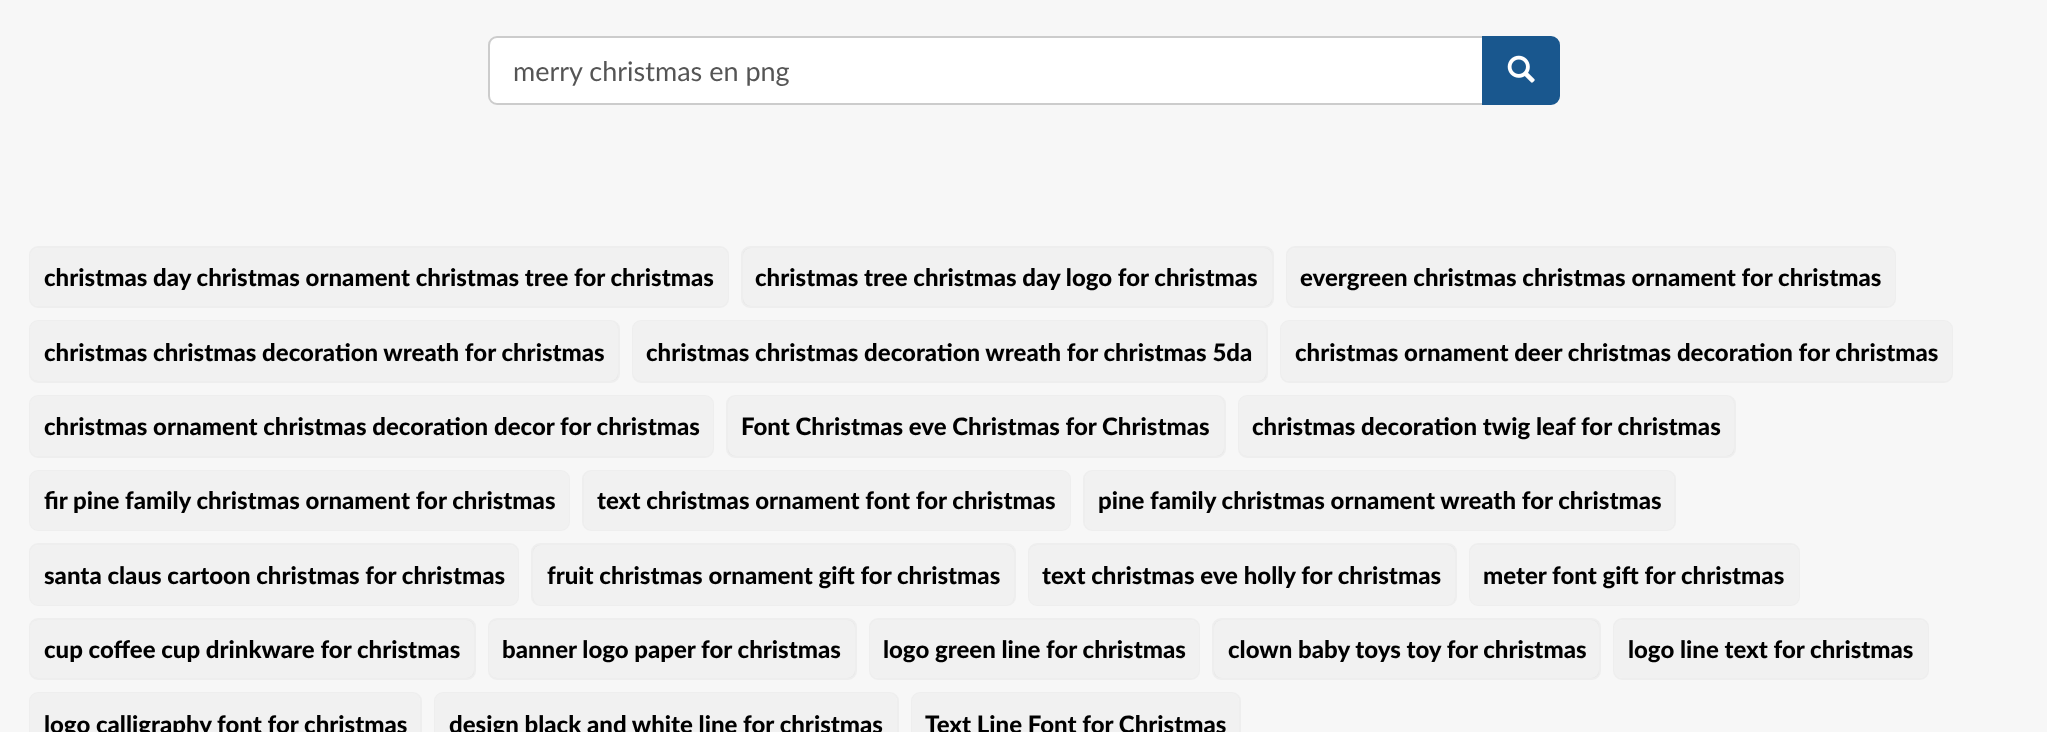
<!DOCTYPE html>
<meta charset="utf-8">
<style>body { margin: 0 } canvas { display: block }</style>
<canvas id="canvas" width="2047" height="732"></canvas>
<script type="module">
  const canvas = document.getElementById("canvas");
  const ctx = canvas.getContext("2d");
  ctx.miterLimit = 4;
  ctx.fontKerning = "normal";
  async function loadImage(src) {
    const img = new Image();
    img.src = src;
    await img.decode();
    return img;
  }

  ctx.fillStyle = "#f7f7f7";
  ctx.fillRect(0, 0, 2047, 732);
  ctx.fillStyle = "#ffffff";
  ctx.beginPath();
  ctx.roundRect(489, 37, 994, 67, [8, 0, 0, 8]);
  ctx.fill();
  ctx.strokeStyle = "#cccccc";
  ctx.lineWidth = 2;
  ctx.stroke();
  ctx.font = "27px Lato";
  ctx.fillStyle = "#555555";
  ctx.fillText("merry christmas en png", 513, 81);
  ctx.fillStyle = "#19578e";
  ctx.beginPath();
  ctx.roundRect(1483, 37, 76, 67, [0, 8, 8, 0]);
  ctx.fill();
  ctx.strokeStyle = "#19578e";
  ctx.stroke();
  ctx.drawImage(await loadImage("img1.png"), 1507, 55, 28, 28);
  ctx.beginPath();
  ctx.roundRect(30, 247, 698, 60, 8);
  ctx.strokeStyle = "#eeeeee";
  ctx.stroke();
  ctx.fillStyle = "#f1f1f1";
  ctx.beginPath();
  ctx.roundRect(30, 248, 698, 58, 8);
  ctx.fill();
  ctx.font = "900 24px Lato";
  ctx.fillStyle = "#000000";
  ctx.fillText("christmas day christmas ornament christmas tree for christmas", 44, 286);
  ctx.fillStyle = "#e4e4e4";
  ctx.beginPath();
  ctx.roundRect(742, 247, 531, 60, 8);
  ctx.fill();
  ctx.stroke();
  ctx.fillStyle = "#f1f1f1";
  ctx.beginPath();
  ctx.roundRect(743, 248, 529, 58, 8);
  ctx.fill();
  ctx.fillStyle = "#000000";
  ctx.fillText("christmas tree christmas day logo for christmas", 755, 286);
  ctx.beginPath();
  ctx.roundRect(1287, 247, 608, 60, 8);
  ctx.stroke();
  ctx.fillStyle = "#f1f1f1";
  ctx.beginPath();
  ctx.roundRect(1287, 248, 608, 58, 8);
  ctx.fill();
  ctx.fillStyle = "#000000";
  ctx.fillText("evergreen christmas christmas ornament for christmas", 1300, 286);
  ctx.fillStyle = "#e4e4e4";
  ctx.beginPath();
  ctx.roundRect(30, 321, 589, 61, 8);
  ctx.fill();
  ctx.stroke();
  ctx.fillStyle = "#f1f1f1";
  ctx.beginPath();
  ctx.roundRect(30, 321, 588, 60, 8);
  ctx.fill();
  ctx.fillStyle = "#000000";
  ctx.fillText("christmas christmas decoration wreath for christmas", 44, 361);
  ctx.fillStyle = "#e4e4e4";
  ctx.beginPath();
  ctx.roundRect(633, 321, 634, 61, 8);
  ctx.fill();
  ctx.stroke();
  ctx.fillStyle = "#f1f1f1";
  ctx.beginPath();
  ctx.roundRect(633, 321, 633, 60, 8);
  ctx.fill();
  ctx.fillStyle = "#000000";
  ctx.fillText("christmas christmas decoration wreath for christmas 5da", 646, 361);
  ctx.beginPath();
  ctx.roundRect(1281, 321, 671, 61, 8);
  ctx.stroke();
  ctx.fillStyle = "#f1f1f1";
  ctx.beginPath();
  ctx.roundRect(1281, 321, 671, 60, 8);
  ctx.fill();
  ctx.fillStyle = "#000000";
  ctx.fillText("christmas ornament deer christmas decoration for christmas", 1295, 361);
  ctx.beginPath();
  ctx.roundRect(30, 396, 683, 61, 8);
  ctx.stroke();
  ctx.fillStyle = "#f1f1f1";
  ctx.beginPath();
  ctx.roundRect(30, 396, 683, 60, 8);
  ctx.fill();
  ctx.fillStyle = "#000000";
  ctx.fillText("christmas ornament christmas decoration decor for christmas", 44, 435);
  ctx.fillStyle = "#e4e4e4";
  ctx.beginPath();
  ctx.roundRect(727, 396, 498, 61, 8);
  ctx.fill();
  ctx.stroke();
  ctx.fillStyle = "#f1f1f1";
  ctx.beginPath();
  ctx.roundRect(728, 396, 496, 60, 8);
  ctx.fill();
  ctx.fillStyle = "#000000";
  ctx.fillText("Font Christmas eve Christmas for Christmas", 741, 435);
  ctx.fillStyle = "#e4e4e4";
  ctx.beginPath();
  ctx.roundRect(1239, 396, 496, 61, 8);
  ctx.fill();
  ctx.stroke();
  ctx.fillStyle = "#f1f1f1";
  ctx.beginPath();
  ctx.roundRect(1239, 396, 495, 60, 8);
  ctx.fill();
  ctx.fillStyle = "#000000";
  ctx.fillText("christmas decoration twig leaf for christmas", 1252, 435);
  ctx.beginPath();
  ctx.roundRect(30, 471, 539, 59, 8);
  ctx.stroke();
  ctx.fillStyle = "#f1f1f1";
  ctx.beginPath();
  ctx.roundRect(30, 471, 539, 59, 8);
  ctx.fill();
  ctx.fillStyle = "#000000";
  ctx.fillText("fir pine family christmas ornament for christmas", 44, 509);
  ctx.beginPath();
  ctx.roundRect(583, 471, 487, 59, 8);
  ctx.stroke();
  ctx.fillStyle = "#f1f1f1";
  ctx.beginPath();
  ctx.roundRect(584, 471, 486, 59, 8);
  ctx.fill();
  ctx.fillStyle = "#000000";
  ctx.fillText("text christmas ornament font for christmas", 597, 509);
  ctx.beginPath();
  ctx.roundRect(1084, 471, 591, 59, 8);
  ctx.stroke();
  ctx.fillStyle = "#f1f1f1";
  ctx.beginPath();
  ctx.roundRect(1085, 471, 589, 59, 8);
  ctx.fill();
  ctx.fillStyle = "#000000";
  ctx.fillText("pine family christmas ornament wreath for christmas", 1098, 509);
  ctx.beginPath();
  ctx.roundRect(30, 544, 488, 61, 8);
  ctx.stroke();
  ctx.fillStyle = "#f1f1f1";
  ctx.beginPath();
  ctx.roundRect(30, 545, 488, 60, 8);
  ctx.fill();
  ctx.fillStyle = "#000000";
  ctx.fillText("santa claus cartoon christmas for christmas", 44, 584);
  ctx.fillStyle = "#e4e4e4";
  ctx.beginPath();
  ctx.roundRect(532, 544, 483, 61, 8);
  ctx.fill();
  ctx.stroke();
  ctx.fillStyle = "#f1f1f1";
  ctx.beginPath();
  ctx.roundRect(533, 545, 481, 60, 8);
  ctx.fill();
  ctx.fillStyle = "#000000";
  ctx.fillText("fruit christmas ornament gift for christmas", 547, 584);
  ctx.fillStyle = "#e4e4e4";
  ctx.beginPath();
  ctx.roundRect(1029, 544, 427, 61, 8);
  ctx.fill();
  ctx.stroke();
  ctx.fillStyle = "#f1f1f1";
  ctx.beginPath();
  ctx.roundRect(1029, 545, 426, 60, 8);
  ctx.fill();
  ctx.fillStyle = "#000000";
  ctx.fillText("text christmas eve holly for christmas", 1042, 584);
  ctx.beginPath();
  ctx.roundRect(1470, 544, 329, 61, 8);
  ctx.stroke();
  ctx.fillStyle = "#f1f1f1";
  ctx.beginPath();
  ctx.roundRect(1470, 545, 329, 60, 8);
  ctx.fill();
  ctx.fillStyle = "#000000";
  ctx.fillText("meter font gift for christmas", 1483, 584);
  ctx.fillStyle = "#e4e4e4";
  ctx.beginPath();
  ctx.roundRect(30, 619, 445, 60, 8);
  ctx.fill();
  ctx.stroke();
  ctx.fillStyle = "#f1f1f1";
  ctx.beginPath();
  ctx.roundRect(30, 620, 444, 58, 8);
  ctx.fill();
  ctx.fillStyle = "#000000";
  ctx.fillText("cup coffee cup drinkware for christmas", 44, 658);
  ctx.fillStyle = "#e4e4e4";
  ctx.beginPath();
  ctx.roundRect(489, 619, 367, 60, 8);
  ctx.fill();
  ctx.stroke();
  ctx.fillStyle = "#f1f1f1";
  ctx.beginPath();
  ctx.roundRect(489, 620, 366, 58, 8);
  ctx.fill();
  ctx.fillStyle = "#000000";
  ctx.fillText("banner logo paper for christmas", 502, 658);
  ctx.beginPath();
  ctx.roundRect(870, 619, 329, 60, 8);
  ctx.stroke();
  ctx.fillStyle = "#f1f1f1";
  ctx.beginPath();
  ctx.roundRect(870, 620, 329, 58, 8);
  ctx.fill();
  ctx.fillStyle = "#000000";
  ctx.fillText("logo green line for christmas", 883, 658);
  ctx.fillStyle = "#e4e4e4";
  ctx.beginPath();
  ctx.roundRect(1213, 619, 387, 60, 8);
  ctx.fill();
  ctx.stroke();
  ctx.fillStyle = "#f1f1f1";
  ctx.beginPath();
  ctx.roundRect(1214, 620, 385, 58, 8);
  ctx.fill();
  ctx.fillStyle = "#000000";
  ctx.fillText("clown baby toys toy for christmas", 1228, 658);
  ctx.beginPath();
  ctx.roundRect(1614, 619, 314, 60, 8);
  ctx.stroke();
  ctx.fillStyle = "#f1f1f1";
  ctx.beginPath();
  ctx.roundRect(1614, 620, 314, 58, 8);
  ctx.fill();
  ctx.fillStyle = "#000000";
  ctx.fillText("logo line text for christmas", 1628, 658);
  ctx.beginPath();
  ctx.roundRect(30, 693, 391, 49, 8);
  ctx.stroke();
  ctx.fillStyle = "#f1f1f1";
  ctx.beginPath();
  ctx.roundRect(30, 693, 390, 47, 8);
  ctx.fill();
  ctx.fillStyle = "#000000";
  ctx.fillText("logo calligraphy font for christmas", 44, 733);
  ctx.beginPath();
  ctx.roundRect(435, 693, 463, 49, 8);
  ctx.stroke();
  ctx.fillStyle = "#f1f1f1";
  ctx.beginPath();
  ctx.roundRect(435, 693, 462, 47, 8);
  ctx.fill();
  ctx.fillStyle = "#000000";
  ctx.fillText("design black and white line for christmas", 449, 733);
  ctx.beginPath();
  ctx.roundRect(912, 693, 328, 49, 8);
  ctx.stroke();
  ctx.fillStyle = "#f1f1f1";
  ctx.beginPath();
  ctx.roundRect(912, 693, 327, 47, 8);
  ctx.fill();
  ctx.fillStyle = "#000000";
  ctx.fillText("Text Line Font for Christmas", 925, 733);
</script>
